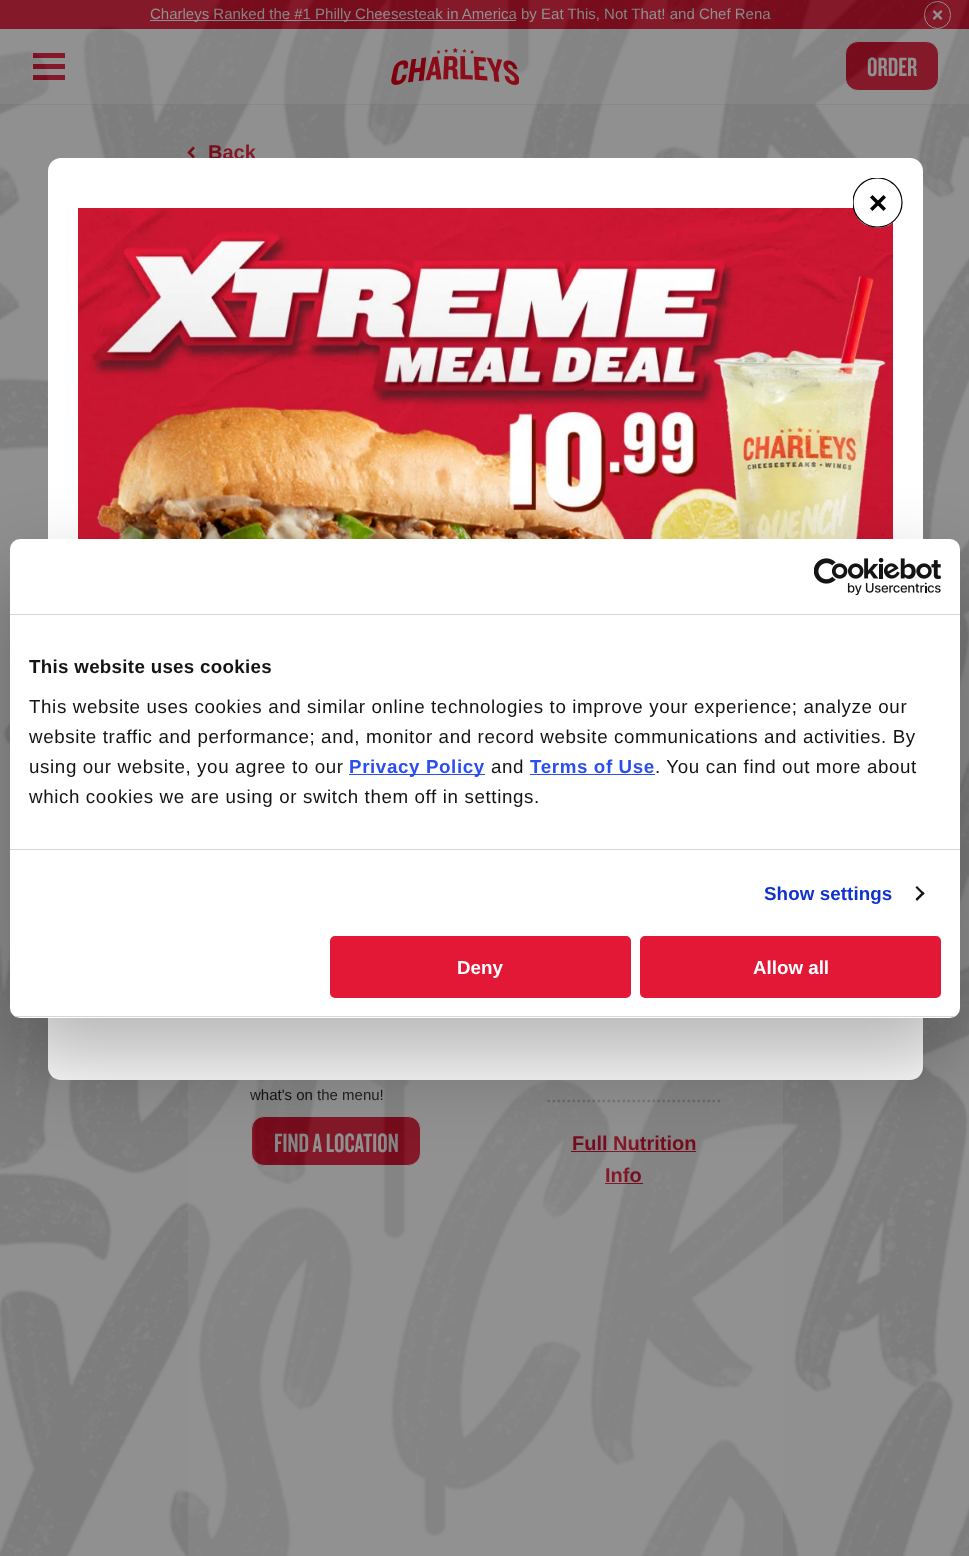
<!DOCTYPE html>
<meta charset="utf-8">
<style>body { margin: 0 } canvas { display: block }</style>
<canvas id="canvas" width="969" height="1556"></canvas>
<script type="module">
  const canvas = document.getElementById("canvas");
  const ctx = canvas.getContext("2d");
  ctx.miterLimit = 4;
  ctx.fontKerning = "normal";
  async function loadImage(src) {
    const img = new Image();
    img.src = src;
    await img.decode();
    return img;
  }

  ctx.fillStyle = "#8c8c8c";
  ctx.fillRect(0, 0, 969, 1556);
  ctx.drawImage(await loadImage("img1.png"), 0, 105, 969, 1451);
  ctx.fillStyle = "#7d0d1e";
  ctx.fillRect(0, 0, 969, 29);
  ctx.fillStyle = "#8c8c8c";
  ctx.fillRect(150, 20, 366, 1);
  ctx.font = "15px Liberation Sans";
  ctx.fillText("Charleys Ranked the #1 Philly Cheesesteak in America by Eat This, Not That! and Chef Rena", 150, 19);
  ctx.drawImage(await loadImage("img4.png"), 933, 10, 10, 10);
  ctx.beginPath();
  ctx.roundRect(924.5, 1.5, 26, 27, 13);
  ctx.strokeStyle = "#8c8c8c";
  ctx.stroke();
  ctx.fillStyle = "#838383";
  ctx.fillRect(0, 104, 969, 1);
  ctx.fillStyle = "#7d0d1e";
  ctx.fillRect(33, 53, 32, 5);
  ctx.fillRect(33, 64, 32, 5);
  ctx.fillRect(33, 75, 32, 5);
  ctx.drawImage(await loadImage("img5.png"), 391, 48, 128, 37);
  ctx.beginPath();
  ctx.roundRect(845.5, 41.5, 93, 49, 12.5);
  ctx.fill();
  ctx.stroke();
  ctx.font = "27.5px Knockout";
  ctx.fillStyle = "#8c8c8c";
  ctx.fillText("ORDER", 867, 76);
  ctx.beginPath();
  ctx.moveTo(194, 147.5);
  ctx.lineTo(189, 152.5);
  ctx.lineTo(194, 157.5);
  ctx.strokeStyle = "#7d0d1e";
  ctx.lineWidth = 2.5;
  ctx.stroke();
  ctx.font = "bold 20px Liberation Sans";
  ctx.fillStyle = "#7d0d1e";
  ctx.fillText("Back", 208, 159);
  ctx.fillStyle = "#8c8c8c";
  ctx.fillRect(188, 1080, 595, 476);
  ctx.font = "15px Liberation Sans";
  ctx.fillStyle = "#141414";
  ctx.fillText("what's on the menu!", 250, 1100);
  ctx.fillStyle = "#7d0d1e";
  ctx.beginPath();
  ctx.roundRect(251.5, 1116.5, 169, 49, 12.5);
  ctx.fill();
  ctx.strokeStyle = "#8c8c8c";
  ctx.lineWidth = 1;
  ctx.stroke();
  ctx.font = "27.5px Knockout";
  ctx.fillStyle = "#8c8c8c";
  ctx.fillText("FIND A LOCATION", 274, 1152);
  ctx.beginPath();
  ctx.moveTo(547.5, 1101);
  ctx.lineTo(720, 1101);
  ctx.strokeStyle = "#707070";
  ctx.lineWidth = 2.5;
  ctx.setLineDash([2.5, 2.5]);
  ctx.stroke();
  ctx.font = "bold 20px Liberation Sans";
  ctx.fillStyle = "#7d0d1e";
  ctx.fillText("Full Nutrition", 572, 1150);
  ctx.fillRect(571, 1151, 125, 1);
  ctx.fillText("Info", 605, 1182);
  ctx.fillRect(605, 1183, 38, 1);
  ctx.drawImage(await loadImage("img2.png"), 0, 0, 969, 1556);
  ctx.fillStyle = "#ffffff";
  ctx.beginPath();
  ctx.roundRect(48, 158, 875, 922, 13);
  ctx.fill();
  ctx.drawImage(await loadImage("img3.png"), 78, 208, 815, 331);
  ctx.save();
  ctx.beginPath();
  ctx.rect(853, 178, 50, 50);
  ctx.clip();
  ctx.beginPath();
  ctx.moveTo(882, 178);
  ctx.bezierCurveTo(878, 178, 873, 177, 869, 179);
  ctx.bezierCurveTo(846, 188, 848, 223, 873, 227);
  ctx.bezierCurveTo(905, 233, 914, 184, 882, 178);
  ctx.closePath();
  ctx.fill();
  ctx.restore();
  ctx.save();
  ctx.beginPath();
  ctx.roundRect(853, 178, 50, 50, 13);
  ctx.clip();
  ctx.beginPath();
  ctx.arc(877.5, 202.5, 24.5, 0, Math.PI * 2);
  ctx.strokeStyle = "#000000";
  ctx.lineWidth = 1.2;
  ctx.setLineDash([]);
  ctx.stroke();
  ctx.restore();
  ctx.fillStyle = "#000000";
  ctx.beginPath();
  ctx.moveTo(870, 208.5);
  ctx.lineTo(883.5, 195);
  ctx.lineTo(886, 197.5);
  ctx.lineTo(872.5, 211);
  ctx.closePath();
  ctx.fill();
  ctx.beginPath();
  ctx.moveTo(872.5, 195);
  ctx.lineTo(886, 208.5);
  ctx.lineTo(883.5, 211);
  ctx.lineTo(870, 197.5);
  ctx.closePath();
  ctx.fill();
  ctx.fillStyle = "rgba(0, 0, 0, 0.3)";
  ctx.filter = "blur(42.5px)";
  ctx.beginPath();
  ctx.roundRect(10, 579, 950, 479, 10);
  ctx.fill();
  ctx.filter = "none";
  ctx.fillStyle = "#ffffff";
  ctx.beginPath();
  ctx.roundRect(10, 539, 950, 479, 10);
  ctx.fill();
  ctx.fillStyle = "#d6d6d6";
  ctx.fillRect(10, 614, 950, 1);
  ctx.drawImage(await loadImage("img6.png"), 814, 558, 127, 37);
  ctx.fillRect(10, 849, 950, 1);
  ctx.letterSpacing = "0.3px";
  ctx.font = "bold 18.75px Liberation Sans";
  ctx.fillStyle = "#141414";
  ctx.fillText("This website uses cookies", 29, 673);
  ctx.letterSpacing = "0.62px";
  ctx.font = "18.75px Liberation Sans";
  ctx.fillText("This website uses cookies and similar online technologies to improve your experience; analyze our", 29, 713);
  ctx.fillText("website traffic and performance; and, monitor and record website communications and activities. By", 29, 743);
  ctx.fillText("using our website, you agree to our", 29, 773);
  ctx.fillStyle = "#2a4eef";
  ctx.fillRect(349, 774, 136, 1);
  ctx.font = "bold 18.75px Liberation Sans";
  ctx.fillText("Privacy Policy", 349, 773);
  ctx.font = "18.75px Liberation Sans";
  ctx.fillStyle = "#141414";
  ctx.fillText("and", 491, 773);
  ctx.font = "bold 18.75px Liberation Sans";
  ctx.fillStyle = "#2a4eef";
  ctx.fillText("Terms of Use", 530, 773);
  ctx.fillRect(530, 774, 125, 1);
  ctx.font = "18.75px Liberation Sans";
  ctx.fillStyle = "#141414";
  ctx.fillText(". You can find out more about", 655, 773);
  ctx.fillText("which cookies we are using or switch them off in settings.", 29, 803);
  ctx.letterSpacing = "0.1px";
  ctx.font = "bold 18.75px Liberation Sans";
  ctx.fillStyle = "#1032cf";
  ctx.fillText("Show settings", 764, 900);
  ctx.fillStyle = "#141414";
  ctx.beginPath();
  ctx.moveTo(917, 886);
  ctx.lineTo(924.5, 893.5);
  ctx.lineTo(923, 895);
  ctx.lineTo(915.5, 887.5);
  ctx.closePath();
  ctx.fill();
  ctx.beginPath();
  ctx.moveTo(923, 891.5);
  ctx.lineTo(924.5, 893.5);
  ctx.lineTo(917, 901);
  ctx.lineTo(915.5, 899);
  ctx.closePath();
  ctx.fill();
  ctx.save();
  ctx.beginPath();
  ctx.roundRect(10, 539, 950, 479, 10);
  ctx.clip();
  ctx.fillStyle = "#d6d6d6";
  ctx.fillRect(10, 1016, 950, 1);
  ctx.restore();
  ctx.fillStyle = "#e31837";
  ctx.beginPath();
  ctx.roundRect(331.5, 937.5, 298, 59, 3.5);
  ctx.fill();
  ctx.strokeStyle = "#e31837";
  ctx.lineWidth = 3;
  ctx.setLineDash([]);
  ctx.stroke();
  ctx.letterSpacing = "0px";
  ctx.fillStyle = "#ffffff";
  ctx.fillText("Deny", 457, 974);
  ctx.fillStyle = "#e31837";
  ctx.beginPath();
  ctx.roundRect(641.5, 937.5, 298, 59, 3.5);
  ctx.fill();
  ctx.stroke();
  ctx.fillStyle = "#ffffff";
  ctx.fillText("Allow all", 753, 974);
</script>
